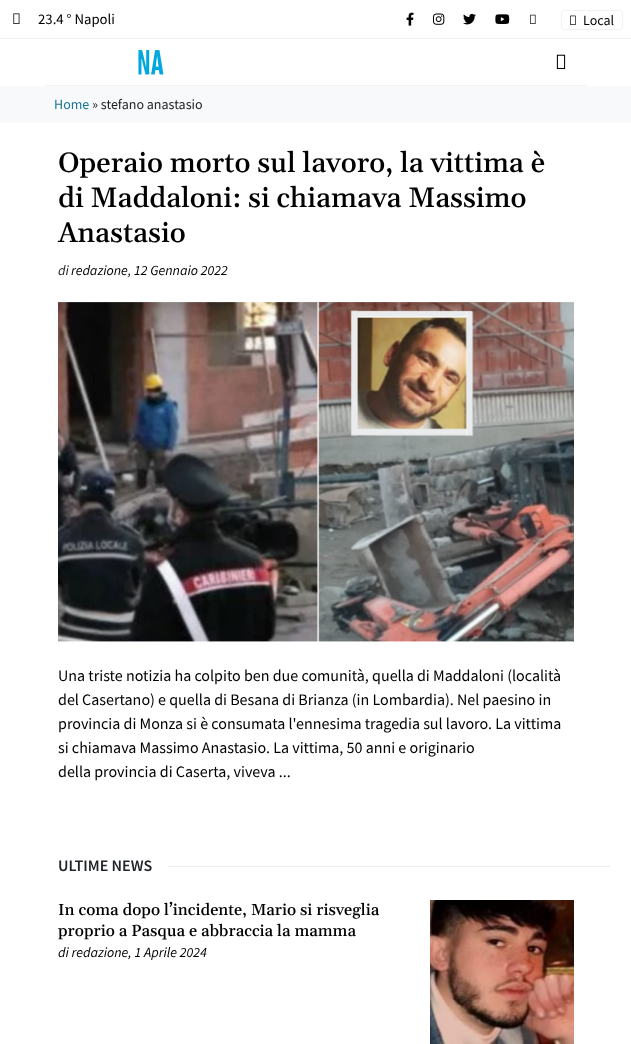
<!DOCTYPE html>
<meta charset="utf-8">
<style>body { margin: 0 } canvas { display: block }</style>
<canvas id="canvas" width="631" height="1044"></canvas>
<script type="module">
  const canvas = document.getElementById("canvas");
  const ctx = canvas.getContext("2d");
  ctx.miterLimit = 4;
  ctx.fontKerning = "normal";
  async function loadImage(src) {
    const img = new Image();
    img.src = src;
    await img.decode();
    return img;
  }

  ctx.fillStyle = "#ffffff";
  ctx.fillRect(0, 0, 631, 1044);
  ctx.fillStyle = "#f2f2f2";
  ctx.fillRect(0, 38, 631, 1);
  ctx.drawImage(await loadImage("img1.png"), 13, 13, 7, 11);
  ctx.font = "14.75px Source Sans Pro";
  ctx.fillStyle = "#000000";
  ctx.fillText("23.4 ° Napoli", 38, 24);
  ctx.drawImage(await loadImage("img2.png"), 406, 12, 8, 14);
  ctx.drawImage(await loadImage("img3.png"), 433, 13, 12, 12);
  ctx.drawImage(await loadImage("img4.png"), 463, 13, 13, 12);
  ctx.drawImage(await loadImage("img5.png"), 495, 14, 15, 10);
  ctx.drawImage(await loadImage("img6.png"), 530, 14, 6, 10);
  ctx.beginPath();
  ctx.roundRect(561.5, 10.5, 61, 19, 2.5);
  ctx.strokeStyle = "#f2f2f2";
  ctx.stroke();
  ctx.drawImage(await loadImage("img7.png"), 570, 15, 6, 10);
  ctx.font = "14px Source Sans Pro";
  ctx.fillText("Local", 583, 25);
  ctx.fillStyle = "#f2f2f2";
  ctx.fillRect(46, 85, 540, 1);
  ctx.drawImage(await loadImage("img8.png"), 138, 50, 26, 25);
  ctx.drawImage(await loadImage("img9.png"), 556, 54, 10, 15);
  ctx.fillStyle = "#f8f9fa";
  ctx.fillRect(0, 86, 631, 37);
  ctx.fillStyle = "#197594";
  ctx.fillText("Home", 54, 109);
  ctx.fillStyle = "#212529";
  ctx.fillText("» stefano anastasio", 92, 109);
  ctx.font = "500 28px Gelasio";
  ctx.fillStyle = "#000000";
  ctx.fillText("Operaio morto sul lavoro, la vittima è", 58, 172);
  ctx.fillText("di Maddaloni: si chiamava Massimo", 58, 207);
  ctx.fillText("Anastasio", 58, 242);
  ctx.font = "italic 14px Source Sans Pro";
  ctx.fillStyle = "#212529";
  ctx.fillText("di", 58, 275);
  ctx.fillStyle = "#000000";
  ctx.fillText("redazione", 71, 275);
  ctx.fillStyle = "#212529";
  ctx.fillText(",", 128, 275);
  ctx.fillStyle = "#000000";
  ctx.fillText("12 Gennaio 2022", 134, 275);
  ctx.drawImage(await loadImage("img10.png"), 58, 302, 516, 340);
  ctx.font = "16px Source Sans Pro";
  ctx.fillText("Una triste notizia ha colpito ben due comunità, quella di Maddaloni (località", 58, 681);
  ctx.fillText("del Casertano) e quella di Besana di Brianza (in Lombardia). Nel paesino in", 58, 705);
  ctx.fillText("provincia di Monza si è consumata l'ennesima tragedia sul lavoro. La vittima", 58, 729);
  ctx.fillText("si chiamava Massimo Anastasio. La vittima, 50 anni e originario", 58, 753);
  ctx.fillText("della provincia di Caserta, viveva ...", 58, 777);
  ctx.font = "600 16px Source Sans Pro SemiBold";
  ctx.fillStyle = "#212529";
  ctx.fillText("ULTIME NEWS", 58, 871);
  ctx.fillStyle = "#ececec";
  ctx.fillRect(168, 866, 442, 1);
  ctx.font = "500 16px Gelasio";
  ctx.fillStyle = "#000000";
  ctx.fillText("In coma dopo l’incidente, Mario si risveglia", 58, 915);
  ctx.fillText("proprio a Pasqua e abbraccia la mamma", 58, 936);
  ctx.font = "italic 14px Source Sans Pro";
  ctx.fillText("di redazione, 1 Aprile 2024", 58, 957);
  ctx.drawImage(await loadImage("img11.png"), 430, 900, 144, 144);
</script>
